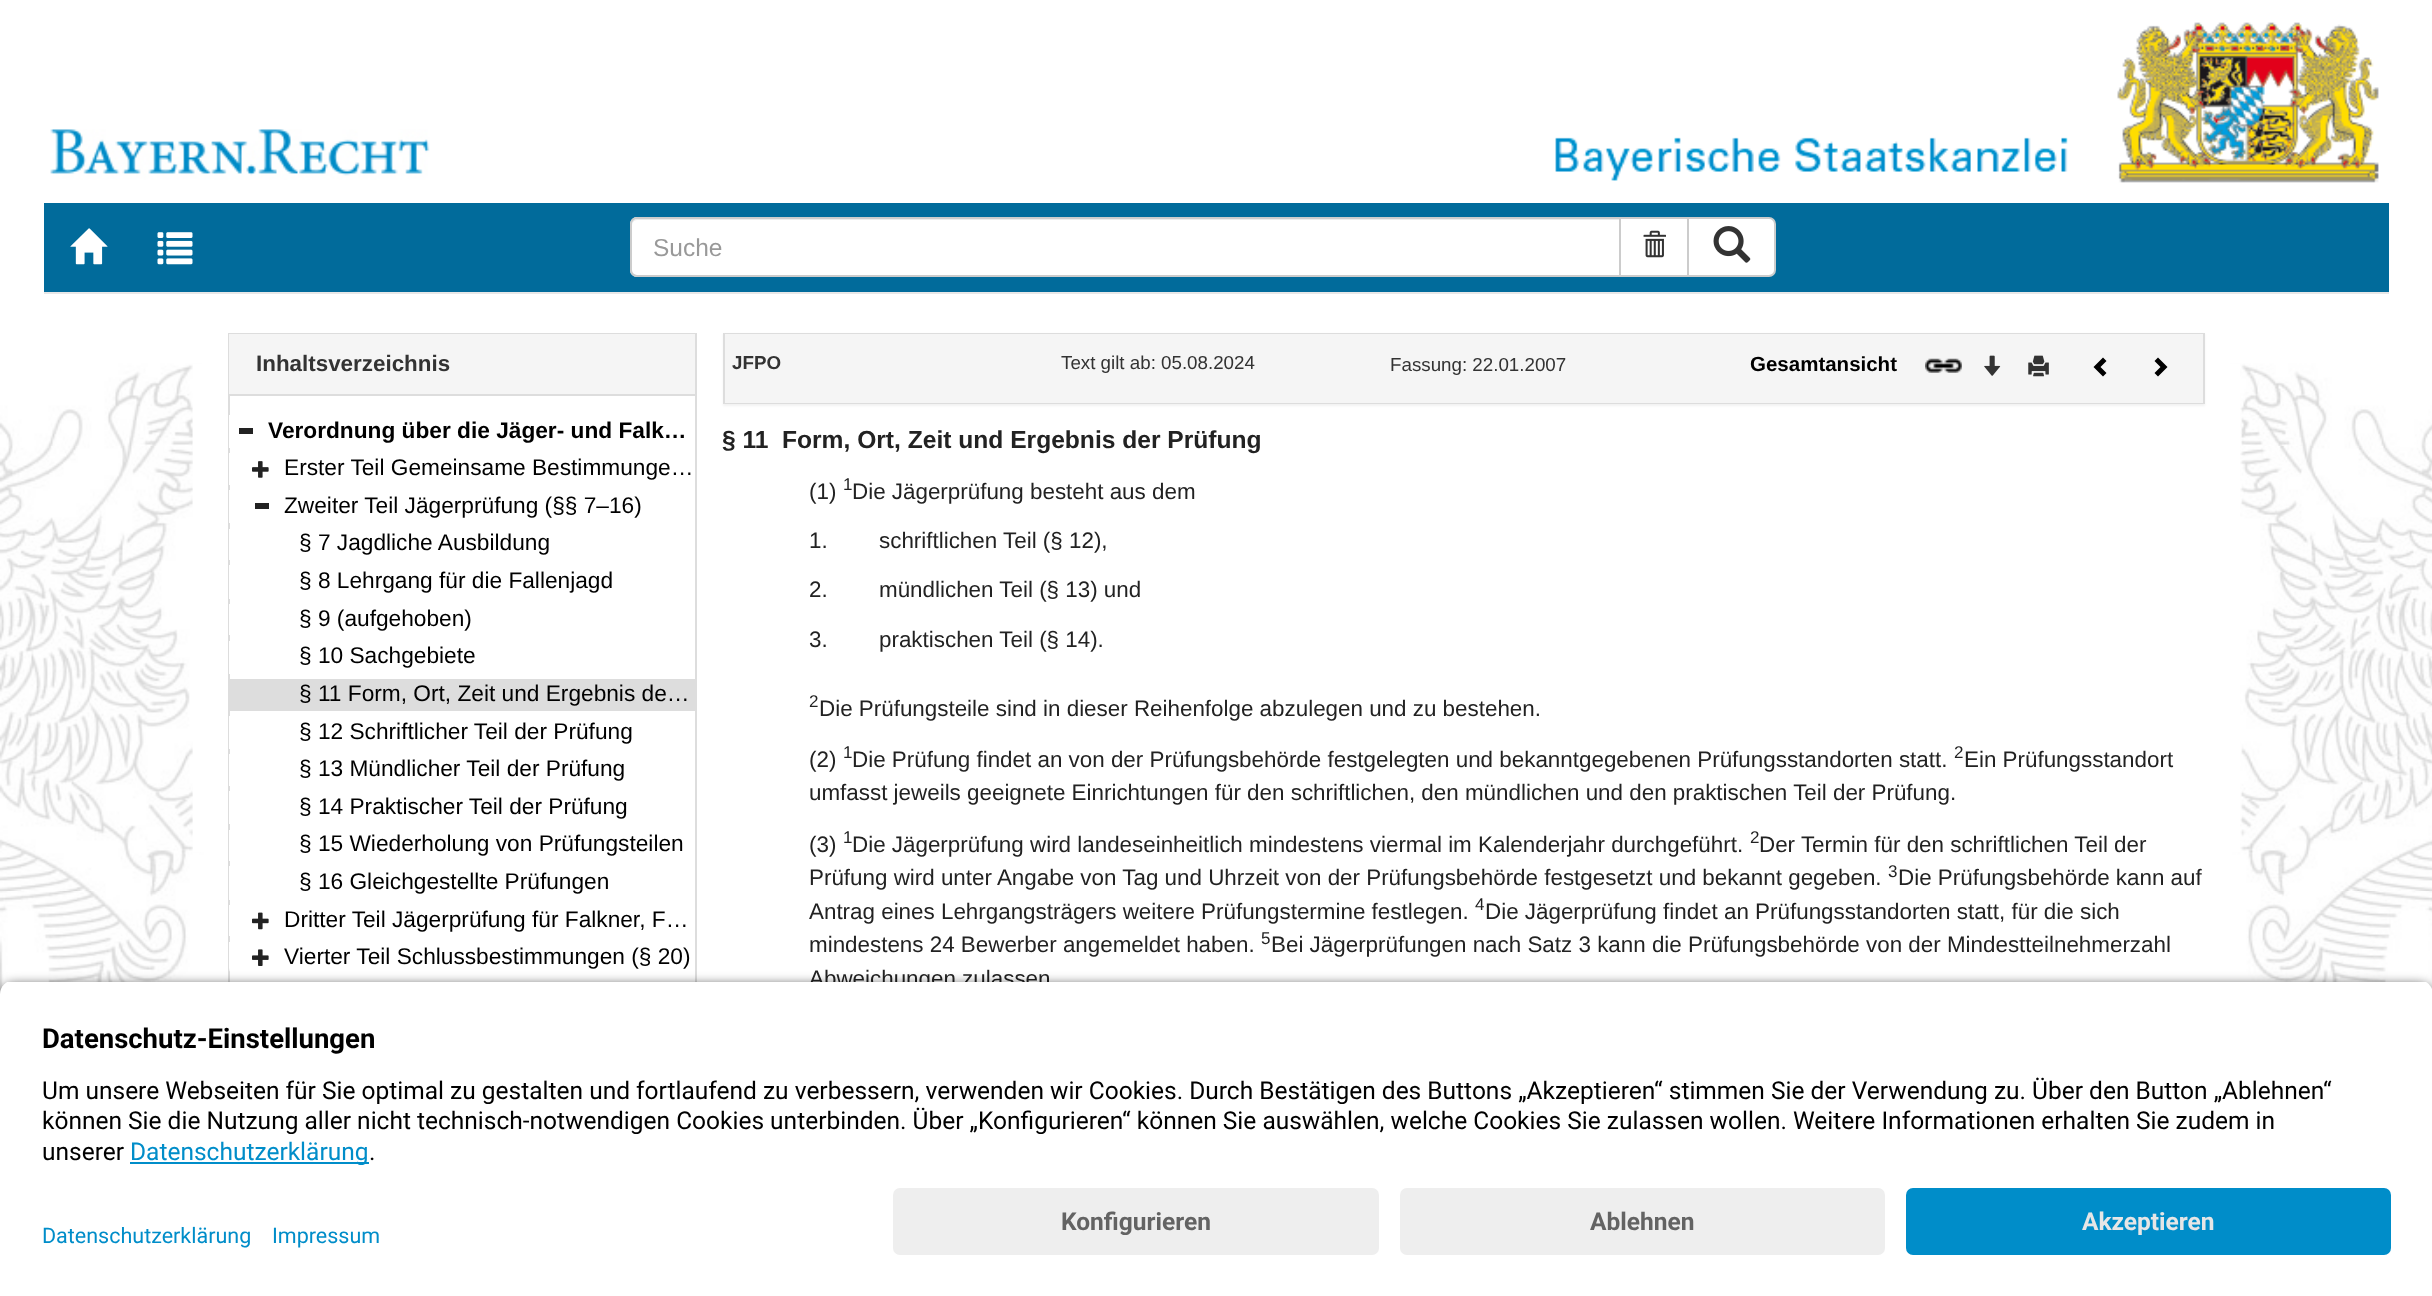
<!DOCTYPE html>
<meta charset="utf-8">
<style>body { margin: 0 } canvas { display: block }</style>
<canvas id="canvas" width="2432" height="1296"></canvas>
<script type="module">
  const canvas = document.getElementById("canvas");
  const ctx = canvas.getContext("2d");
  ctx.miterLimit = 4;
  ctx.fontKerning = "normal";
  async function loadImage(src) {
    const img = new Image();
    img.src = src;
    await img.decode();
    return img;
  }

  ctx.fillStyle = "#ffffff";
  ctx.fillRect(0, 0, 2432, 1296);
  ctx.drawImage(await loadImage("img1.png"), 0, 203, 2432, 791);
  ctx.fillStyle = "#016b9b";
  ctx.fillRect(44, 203, 2345, 89);
  ctx.fillStyle = "#e7e7e7";
  ctx.fillRect(44, 292, 2345, 2);
  ctx.drawImage(await loadImage("img2.png"), 50, 129, 380, 51);
  ctx.drawImage(await loadImage("img3.png"), 1555, 22, 824, 161);
  ctx.drawImage(await loadImage("img4.png"), 70, 228, 38, 37);
  ctx.drawImage(await loadImage("img5.png"), 157, 232, 36, 33);
  ctx.fillStyle = "#ffffff";
  ctx.beginPath();
  ctx.rect(1620, 218, 68, 58);
  ctx.fill();
  ctx.strokeStyle = "#cccccc";
  ctx.lineWidth = 2;
  ctx.stroke();
  ctx.beginPath();
  ctx.roundRect(630, 217, 991, 60, [7, 0, 0, 7]);
  ctx.fill();
  ctx.fillStyle = "#ececec";
  ctx.beginPath();
  ctx.moveTo(637, 220);
  ctx.lineTo(1619, 220);
  ctx.lineTo(1619, 219);
  ctx.lineTo(637, 219);
  ctx.bezierCurveTo(633, 219, 632, 223, 632, 226);
  ctx.bezierCurveTo(632, 223, 634, 220, 637, 220);
  ctx.closePath();
  ctx.fill();
  ctx.beginPath();
  ctx.roundRect(631, 218, 989, 58, [6, 0, 0, 6]);
  ctx.stroke();
  ctx.font = "24.5px Liberation Sans";
  ctx.fillStyle = "#999999";
  ctx.fillText("Suche", 653, 256);
  ctx.drawImage(await loadImage("img6.png"), 1643, 230, 23, 28);
  ctx.fillStyle = "#ffffff";
  ctx.beginPath();
  ctx.roundRect(1688, 218, 87, 58, [0, 6, 6, 0]);
  ctx.fill();
  ctx.stroke();
  ctx.drawImage(await loadImage("img7.png"), 1713, 226, 38, 37);
  ctx.fillRect(193, 364, 2047, 488);
  ctx.strokeStyle = "#dddddd";
  ctx.strokeRect(229, 334, 467, 677);
  ctx.fillStyle = "#f5f5f5";
  ctx.fillRect(229, 334, 466, 60);
  ctx.fillStyle = "#dddddd";
  ctx.fillRect(229, 394, 466, 2);
  ctx.font = "bold 22.4px Liberation Sans";
  ctx.fillStyle = "#333333";
  ctx.fillText("Inhaltsverzeichnis", 256, 371);
  ctx.fillStyle = "#ffffff";
  ctx.fillRect(229, 415, 1, 33);
  ctx.fillStyle = "#222222";
  ctx.fillRect(239, 428, 14, 6);
  ctx.font = "bold 22.7px Liberation Sans";
  ctx.fillStyle = "#000000";
  ctx.fillText("Verordnung über die Jäger- und Falk…", 268, 438);
  ctx.fillStyle = "#ffffff";
  ctx.fillRect(229, 453, 1, 32);
  ctx.drawImage(await loadImage("img8.png"), 252, 461, 17, 17);
  ctx.font = "22.7px Liberation Sans";
  ctx.fillStyle = "#000000";
  ctx.fillText("Erster Teil Gemeinsame Bestimmunge…", 284, 475);
  ctx.fillStyle = "#ffffff";
  ctx.fillRect(229, 490, 1, 33);
  ctx.fillStyle = "#222222";
  ctx.fillRect(255, 503, 14, 6);
  ctx.fillStyle = "#000000";
  ctx.fillText("Zweiter Teil Jägerprüfung (§§ 7–16)", 284, 513);
  ctx.fillStyle = "#ffffff";
  ctx.fillRect(229, 529, 1, 31);
  ctx.fillStyle = "#000000";
  ctx.fillText("§ 7 Jagdliche Ausbildung", 299, 550);
  ctx.fillStyle = "#ffffff";
  ctx.fillRect(229, 565, 1, 34);
  ctx.fillStyle = "#000000";
  ctx.fillText("§ 8 Lehrgang für die Fallenjagd", 299, 588);
  ctx.fillStyle = "#ffffff";
  ctx.fillRect(229, 604, 1, 31);
  ctx.fillStyle = "#000000";
  ctx.fillText("§ 9 (aufgehoben)", 299, 626);
  ctx.fillStyle = "#ffffff";
  ctx.fillRect(229, 641, 1, 33);
  ctx.fillStyle = "#000000";
  ctx.fillText("§ 10 Sachgebiete", 299, 663);
  ctx.fillStyle = "#dddddd";
  ctx.fillRect(230, 679, 465, 32);
  ctx.fillStyle = "#000000";
  ctx.fillText("§ 11 Form, Ort, Zeit und Ergebnis de…", 299, 701);
  ctx.fillStyle = "#ffffff";
  ctx.fillRect(229, 716, 1, 33);
  ctx.fillStyle = "#000000";
  ctx.fillText("§ 12 Schriftlicher Teil der Prüfung", 299, 739);
  ctx.fillStyle = "#ffffff";
  ctx.fillRect(229, 754, 1, 32);
  ctx.fillStyle = "#000000";
  ctx.fillText("§ 13 Mündlicher Teil der Prüfung", 299, 776);
  ctx.fillStyle = "#ffffff";
  ctx.fillRect(229, 791, 1, 33);
  ctx.fillStyle = "#000000";
  ctx.fillText("§ 14 Praktischer Teil der Prüfung", 299, 814);
  ctx.fillStyle = "#ffffff";
  ctx.fillRect(229, 830, 1, 31);
  ctx.fillStyle = "#000000";
  ctx.fillText("§ 15 Wiederholung von Prüfungsteilen", 299, 851);
  ctx.fillStyle = "#ffffff";
  ctx.fillRect(229, 866, 1, 34);
  ctx.fillStyle = "#000000";
  ctx.fillText("§ 16 Gleichgestellte Prüfungen", 299, 889);
  ctx.fillStyle = "#ffffff";
  ctx.fillRect(229, 905, 1, 31);
  ctx.drawImage(await loadImage("img9.png"), 252, 912, 17, 18);
  ctx.fillStyle = "#000000";
  ctx.fillText("Dritter Teil Jägerprüfung für Falkner, F…", 284, 927);
  ctx.fillStyle = "#ffffff";
  ctx.beginPath();
  ctx.roundRect(229, 942, 466, 33, [0, 0, 7, 7]);
  ctx.fill();
  ctx.drawImage(await loadImage("img10.png"), 252, 949, 17, 17);
  ctx.fillStyle = "#000000";
  ctx.fillText("Vierter Teil Schlussbestimmungen (§ 20)", 284, 964);
  ctx.fillStyle = "rgba(0, 0, 0, 0.05)";
  ctx.filter = "blur(1px)";
  ctx.beginPath();
  ctx.rect(723, 334, 1482, 72);
  ctx.fill();
  ctx.filter = "none";
  ctx.strokeRect(724, 334, 1480, 69);
  ctx.fillStyle = "#f5f5f5";
  ctx.fillRect(725, 334, 1478, 69);
  ctx.font = "bold 18.75px Liberation Sans";
  ctx.fillStyle = "#333333";
  ctx.fillText("JFPO", 732, 369);
  ctx.font = "18.75px Liberation Sans";
  ctx.fillText("Text gilt ab: 05.08.2024", 1061, 369);
  ctx.fillText("Fassung: 22.01.2007", 1390, 371);
  ctx.font = "bold 20.5px Liberation Sans";
  ctx.fillStyle = "#000000";
  ctx.fillText("Gesamtansicht", 1750, 371);
  ctx.drawImage(await loadImage("img11.png"), 1925, 358, 37, 15);
  ctx.drawImage(await loadImage("img12.png"), 1984, 355, 17, 21);
  ctx.drawImage(await loadImage("img13.png"), 2028, 355, 21, 22);
  ctx.beginPath();
  ctx.moveTo(2106.5, 361);
  ctx.lineTo(2100.5, 367);
  ctx.lineTo(2106.5, 373);
  ctx.lineTo(2103, 376.5);
  ctx.lineTo(2093.5, 367);
  ctx.lineTo(2103, 357.5);
  ctx.closePath();
  ctx.fill();
  ctx.beginPath();
  ctx.moveTo(2167.5, 367);
  ctx.lineTo(2158, 376.5);
  ctx.lineTo(2154.5, 373);
  ctx.lineTo(2160.5, 367);
  ctx.lineTo(2154.5, 361);
  ctx.lineTo(2158, 357.5);
  ctx.closePath();
  ctx.fill();
  ctx.font = "bold 24.6px Liberation Sans";
  ctx.fillStyle = "#222222";
  ctx.fillText("§ 11", 722, 448);
  ctx.fillText("Form, Ort, Zeit und Ergebnis der Prüfung", 782, 448);
  ctx.font = "22.4px Liberation Sans";
  ctx.fillText("(1)", 809, 499);
  ctx.font = "17px Liberation Sans";
  ctx.fillText("1", 843, 490);
  ctx.font = "22.4px Liberation Sans";
  ctx.fillText("Die Jägerprüfung besteht aus dem", 852, 499);
  ctx.fillText("1.", 809, 548);
  ctx.fillText("schriftlichen Teil (§ 12),", 879, 548);
  ctx.fillText("2.", 809, 597);
  ctx.fillText("mündlichen Teil (§ 13) und", 879, 597);
  ctx.fillText("3.", 809, 647);
  ctx.fillText("praktischen Teil (§ 14).", 879, 647);
  ctx.font = "17px Liberation Sans";
  ctx.fillText("2", 809, 707);
  ctx.font = "22.4px Liberation Sans";
  ctx.fillText("Die Prüfungsteile sind in dieser Reihenfolge abzulegen und zu bestehen.", 819, 716);
  ctx.fillText("(2)", 809, 767);
  ctx.font = "17px Liberation Sans";
  ctx.fillText("1", 843, 758);
  ctx.font = "22.4px Liberation Sans";
  ctx.fillText("Die Prüfung findet an von der Prüfungsbehörde festgelegten und bekanntgegebenen Prüfungsstandorten statt.", 852, 767);
  ctx.font = "17px Liberation Sans";
  ctx.fillText("2", 1954, 758);
  ctx.font = "22.4px Liberation Sans";
  ctx.fillText("Ein Prüfungsstandort", 1964, 767);
  ctx.fillText("umfasst jeweils geeignete Einrichtungen für den schriftlichen, den mündlichen und den praktischen Teil der Prüfung.", 809, 800);
  ctx.fillText("(3)", 809, 852);
  ctx.font = "17px Liberation Sans";
  ctx.fillText("1", 843, 843);
  ctx.font = "22.4px Liberation Sans";
  ctx.fillText("Die Jägerprüfung wird landeseinheitlich mindestens viermal im Kalenderjahr durchgeführt.", 852, 852);
  ctx.font = "17px Liberation Sans";
  ctx.fillText("2", 1750, 843);
  ctx.font = "22.4px Liberation Sans";
  ctx.fillText("Der Termin für den schriftlichen Teil der", 1759, 852);
  ctx.fillText("Prüfung wird unter Angabe von Tag und Uhrzeit von der Prüfungsbehörde festgesetzt und bekannt gegeben.", 809, 885);
  ctx.font = "17px Liberation Sans";
  ctx.fillText("3", 1888, 877);
  ctx.font = "22.4px Liberation Sans";
  ctx.fillText("Die Prüfungsbehörde kann auf", 1898, 885);
  ctx.fillText("Antrag eines Lehrgangsträgers weitere Prüfungstermine festlegen.", 809, 919);
  ctx.font = "17px Liberation Sans";
  ctx.fillText("4", 1475, 910);
  ctx.font = "22.4px Liberation Sans";
  ctx.fillText("Die Jägerprüfung findet an Prüfungsstandorten statt, für die sich", 1485, 919);
  ctx.fillText("mindestens 24 Bewerber angemeldet haben.", 809, 952);
  ctx.font = "17px Liberation Sans";
  ctx.fillText("5", 1261, 944);
  ctx.font = "22.4px Liberation Sans";
  ctx.fillText("Bei Jägerprüfungen nach Satz 3 kann die Prüfungsbehörde von der Mindestteilnehmerzahl", 1271, 952);
  ctx.fillText("Abweichungen zulassen", 809, 986);
  ctx.fillStyle = "rgba(0, 0, 0, 0.8)";
  ctx.filter = "blur(6px)";
  ctx.beginPath();
  ctx.roundRect(0, 985, 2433, 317, 14);
  ctx.fill();
  ctx.filter = "none";
  ctx.save();
  ctx.beginPath();
  ctx.moveTo(14, 980);
  ctx.lineTo(2419, 980);
  ctx.bezierCurveTo(2426.5, 980, 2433, 986.5, 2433, 994);
  ctx.lineTo(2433, 1174);
  ctx.lineTo(0, 1174);
  ctx.lineTo(0, 994);
  ctx.bezierCurveTo(0, 986.5, 6.5, 980, 14, 980);
  ctx.closePath();
  ctx.clip();
  ctx.fillStyle = "#ffffff";
  ctx.fillRect(0, 982, 2432, 192);
  ctx.restore();
  ctx.font = "bold 27.5px Roboto";
  ctx.fillStyle = "#000000";
  ctx.fillText("Datenschutz-Einstellungen", 42, 1048);
  ctx.font = "24.5px Roboto";
  ctx.fillText("Um unsere Webseiten für Sie optimal zu gestalten und fortlaufend zu verbessern, verwenden wir Cookies. Durch Bestätigen des Buttons „Akzeptieren“ stimmen Sie der Verwendung zu. Über den Button „Ablehnen“", 42, 1099);
  ctx.fillText("können Sie die Nutzung aller nicht technisch-notwendigen Cookies unterbinden. Über „Konfigurieren“ können Sie auswählen, welche Cookies Sie zulassen wollen. Weitere Informationen erhalten Sie zudem in", 42, 1129);
  ctx.fillText("unserer", 42, 1160);
  ctx.fillStyle = "#008dc9";
  ctx.fillRect(130, 1162, 239, 2);
  ctx.fillText("Datenschutzerklärung", 130, 1160);
  ctx.fillStyle = "#000000";
  ctx.fillText(".", 369, 1160);
  ctx.fillStyle = "#ffffff";
  ctx.fillRect(0, 1174, 2432, 122);
  ctx.font = "21.5px Roboto";
  ctx.fillStyle = "#008dc9";
  ctx.fillText("Datenschutzerklärung", 42, 1243);
  ctx.fillText("Impressum", 272, 1243);
  ctx.fillStyle = "#eeeeee";
  ctx.beginPath();
  ctx.roundRect(893, 1188, 486, 67, 7);
  ctx.fill();
  ctx.font = "bold 24.5px Roboto";
  ctx.fillStyle = "#636363";
  ctx.fillText("Konfigurieren", 1061, 1230);
  ctx.fillStyle = "#eeeeee";
  ctx.beginPath();
  ctx.roundRect(1400, 1188, 485, 67, 7);
  ctx.fill();
  ctx.fillStyle = "#636363";
  ctx.fillText("Ablehnen", 1590, 1230);
  ctx.fillStyle = "#008dc9";
  ctx.beginPath();
  ctx.roundRect(1906, 1188, 485, 67, 7);
  ctx.fill();
  ctx.fillStyle = "#e6e6e6";
  ctx.fillText("Akzeptieren", 2082, 1230);
</script>
